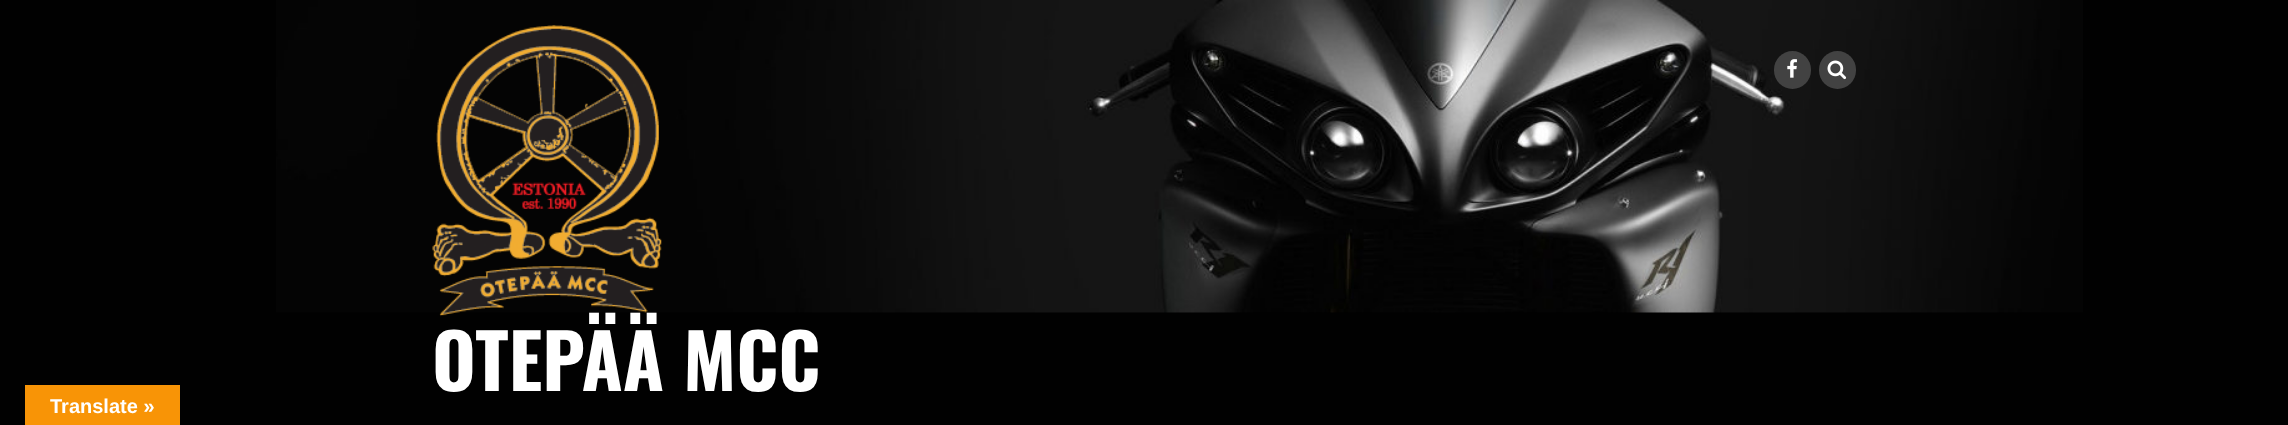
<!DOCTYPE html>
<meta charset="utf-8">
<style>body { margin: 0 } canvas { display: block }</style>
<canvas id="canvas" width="2288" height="425"></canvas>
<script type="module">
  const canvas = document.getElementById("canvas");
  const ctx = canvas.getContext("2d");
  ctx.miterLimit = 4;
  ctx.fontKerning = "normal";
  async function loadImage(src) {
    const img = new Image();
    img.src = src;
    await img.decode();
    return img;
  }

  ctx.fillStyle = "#010101";
  ctx.fillRect(0, 0, 2288, 425);
  ctx.drawImage(await loadImage("img1.png"), 276, 0, 1807, 313);
  ctx.fillStyle = "#424242";
  ctx.beginPath();
  ctx.roundRect(1774, 51, 37, 38, 18.5);
  ctx.fill();
  ctx.drawImage(await loadImage("img2.png"), 1787, 59, 10, 19);
  ctx.beginPath();
  ctx.roundRect(1819, 51, 37, 38, 18.5);
  ctx.fill();
  ctx.drawImage(await loadImage("img3.png"), 1827, 60, 20, 20);
  ctx.drawImage(await loadImage("img4.png"), 432, 25, 230, 292);
  ctx.font = "bold 75px Oswald";
  ctx.fillStyle = "#ffffff";
  ctx.fillText("OTEPÄÄ MCC", 432, 391);
  ctx.fillStyle = "#f89406";
  ctx.fillRect(25, 385, 155, 40);
  ctx.font = "bold 20px Liberation Sans";
  ctx.fillStyle = "#ffffff";
  ctx.fillText("Translate »", 50, 413);
</script>
